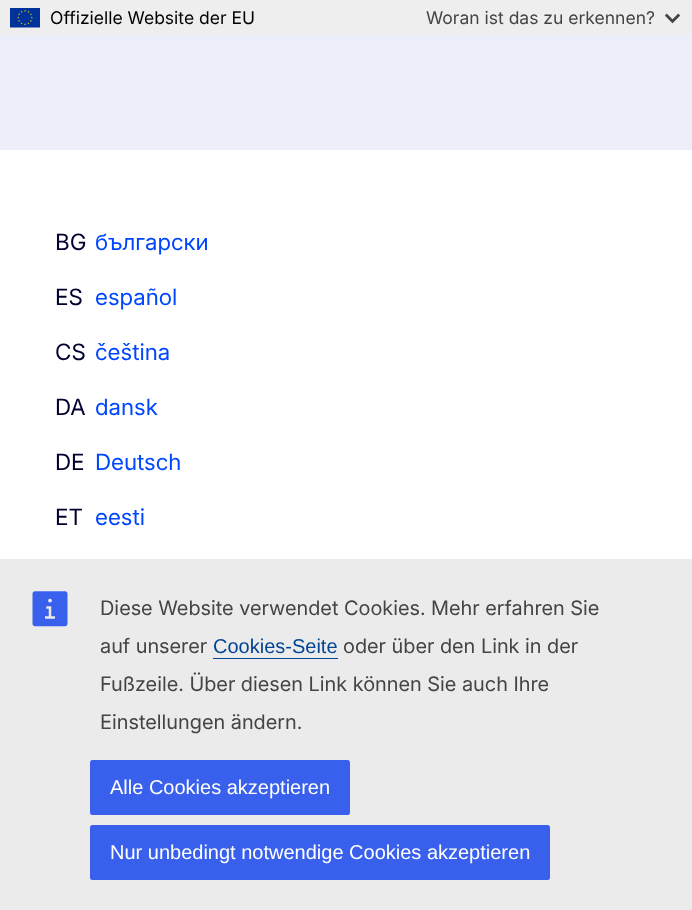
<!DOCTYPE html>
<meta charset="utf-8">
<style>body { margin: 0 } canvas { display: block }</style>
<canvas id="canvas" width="692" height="910"></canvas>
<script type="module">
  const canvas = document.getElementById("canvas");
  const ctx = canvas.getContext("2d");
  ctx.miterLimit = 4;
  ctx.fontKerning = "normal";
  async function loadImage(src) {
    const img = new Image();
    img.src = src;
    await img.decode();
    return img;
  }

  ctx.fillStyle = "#ffffff";
  ctx.fillRect(0, 0, 692, 910);
  ctx.fillStyle = "#eeeeee";
  ctx.fillRect(0, 0, 692, 35);
  ctx.drawImage(await loadImage("img1.png"), 10, 8, 30, 20);
  ctx.font = "17.5px Inter";
  ctx.fillStyle = "#000000";
  ctx.fillText("Offizielle Website der EU", 50, 24);
  ctx.fillStyle = "#444444";
  ctx.fillText("Woran ist das zu erkennen?", 426, 24);
  ctx.drawImage(await loadImage("img2.png"), 665, 13, 15, 11);
  ctx.fillStyle = "#eceff9";
  ctx.fillRect(0, 35, 692, 115);
  ctx.font = "22.5px Inter";
  ctx.fillStyle = "#00002e";
  ctx.fillText("BG", 55, 250);
  ctx.font = "22.5px 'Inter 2'";
  ctx.fillStyle = "#0046ff";
  ctx.fillText("български", 95, 250);
  ctx.fillStyle = "#00002e";
  ctx.fillText("ES", 55, 305);
  ctx.fillStyle = "#0046ff";
  ctx.fillText("español", 95, 305);
  ctx.fillStyle = "#00002e";
  ctx.fillText("CS", 55, 360);
  ctx.fillStyle = "#0046ff";
  ctx.fillText("čeština", 95, 360);
  ctx.fillStyle = "#00002e";
  ctx.fillText("DA", 55, 415);
  ctx.fillStyle = "#0046ff";
  ctx.fillText("dansk", 95, 415);
  ctx.fillStyle = "#00002e";
  ctx.fillText("DE", 55, 470);
  ctx.fillStyle = "#0046ff";
  ctx.fillText("Deutsch", 95, 470);
  ctx.fillStyle = "#00002e";
  ctx.fillText("ET", 55, 525);
  ctx.fillStyle = "#0046ff";
  ctx.fillText("eesti", 95, 525);
  ctx.fillStyle = "#ebebeb";
  ctx.fillRect(0, 559, 692, 351);
  ctx.drawImage(await loadImage("img3.png"), 32, 591, 36, 36);
  ctx.font = "20px 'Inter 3'";
  ctx.fillStyle = "#444444";
  ctx.fillText("Diese Website verwendet Cookies. Mehr erfahren Sie", 100, 615);
  ctx.fillText("auf unserer", 100, 653);
  ctx.font = "20px Liberation Sans";
  ctx.fillStyle = "#004494";
  ctx.fillText("Cookies-Seite", 213, 653);
  ctx.fillRect(213, 658, 125, 1);
  ctx.font = "20px 'Inter 3'";
  ctx.fillStyle = "#444444";
  ctx.fillText("oder über den Link in der", 343, 653);
  ctx.fillText("Fußzeile. Über diesen Link können Sie auch Ihre", 100, 691);
  ctx.fillText("Einstellungen ändern.", 100, 729);
  ctx.fillStyle = "#3860ed";
  ctx.beginPath();
  ctx.roundRect(90, 760, 260, 55, 2.5);
  ctx.fill();
  ctx.font = "20px Liberation Sans";
  ctx.fillStyle = "#ffffff";
  ctx.fillText("Alle Cookies akzeptieren", 110, 794);
  ctx.fillStyle = "#3860ed";
  ctx.beginPath();
  ctx.roundRect(90, 825, 460, 55, 2.5);
  ctx.fill();
  ctx.fillStyle = "#ffffff";
  ctx.fillText("Nur unbedingt notwendige Cookies akzeptieren", 110, 859);
</script>
